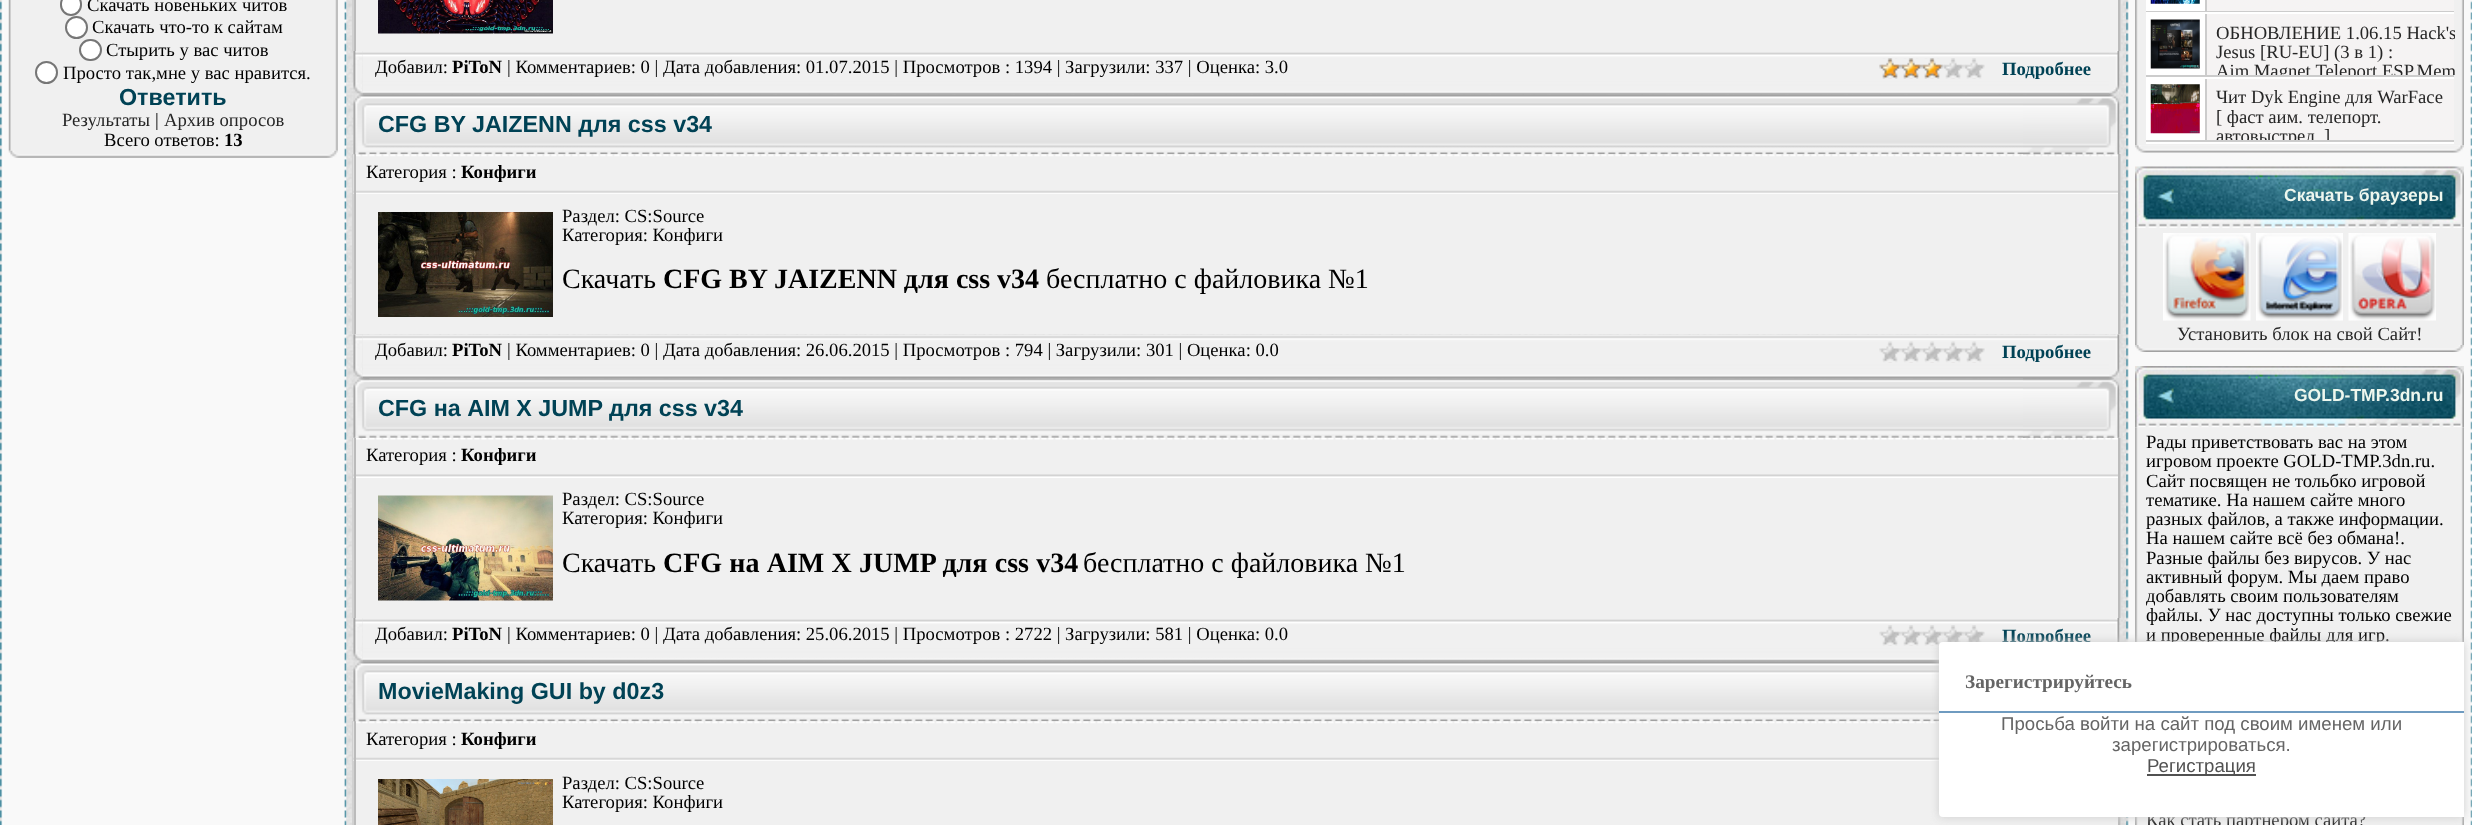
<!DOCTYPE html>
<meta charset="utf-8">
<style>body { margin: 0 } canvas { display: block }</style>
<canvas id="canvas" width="2472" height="825"></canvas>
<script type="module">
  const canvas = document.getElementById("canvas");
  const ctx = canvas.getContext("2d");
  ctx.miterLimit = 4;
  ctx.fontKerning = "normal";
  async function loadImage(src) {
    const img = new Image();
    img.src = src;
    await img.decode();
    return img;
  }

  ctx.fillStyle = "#ffffff";
  ctx.fillRect(0, 0, 2472, 825);
  ctx.drawImage(await loadImage("img1.png"), 346, 0, 1781, 825);
  ctx.drawImage(await loadImage("img2.png"), 0, 0, 347, 825);
  ctx.fillStyle = "#f0f0f0";
  ctx.fillRect(9, 0, 329, 151);
  ctx.drawImage(await loadImage("img3.png"), 8, 0, 330, 151);
  ctx.fillStyle = "#ffffff";
  ctx.beginPath();
  ctx.roundRect(61, -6, 20, 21, 10);
  ctx.fill();
  ctx.strokeStyle = "#767676";
  ctx.lineWidth = 2;
  ctx.stroke();
  ctx.font = "18.65px Liberation Serif";
  ctx.fillStyle = "#000000";
  ctx.fillText("Скачать новеньких читов", 87, 11);
  ctx.fillStyle = "#ffffff";
  ctx.beginPath();
  ctx.arc(76.5, 27.5, 10.5, 0, Math.PI * 2);
  ctx.fill();
  ctx.stroke();
  ctx.fillStyle = "#000000";
  ctx.fillText("Скачать что-то к сайтам", 92, 33);
  ctx.fillStyle = "#ffffff";
  ctx.beginPath();
  ctx.roundRect(80, 40, 21, 20, 10);
  ctx.fill();
  ctx.stroke();
  ctx.fillStyle = "#000000";
  ctx.fillText("Стырить у вас читов", 106, 56);
  ctx.fillStyle = "#ffffff";
  ctx.beginPath();
  ctx.arc(46.5, 72.5, 10.5, 0, Math.PI * 2);
  ctx.fill();
  ctx.stroke();
  ctx.fillStyle = "#000000";
  ctx.fillText("Просто так,мне у вас нравится.", 63, 79);
  ctx.font = "bold 23.3px Liberation Sans";
  ctx.fillStyle = "#004255";
  ctx.fillText("Ответить", 119, 105);
  ctx.font = "18.65px Liberation Serif";
  ctx.fillStyle = "#262626";
  ctx.fillText("Результаты", 62, 126);
  ctx.fillStyle = "#000000";
  ctx.fillText("|", 155, 126);
  ctx.fillStyle = "#262626";
  ctx.fillText("Архив опросов", 164, 126);
  ctx.fillStyle = "#000000";
  ctx.fillText("Всего ответов:", 104, 146);
  ctx.font = "bold 18.65px Liberation Serif";
  ctx.fillText("13", 224, 146);
  ctx.drawImage(await loadImage("img4.png"), 8, 150, 330, 8);
  ctx.fillStyle = "#d1d1d1";
  ctx.fillRect(2120, 0, 1, 51);
  ctx.fillRect(352, 0, 2, 51);
  ctx.fillStyle = "#f0f0f0";
  ctx.fillRect(356, 0, 1762, 51);
  ctx.fillStyle = "#bbbbbb";
  ctx.fillRect(2118, 0, 2, 51);
  ctx.fillRect(354, 0, 2, 51);
  ctx.drawImage(await loadImage("img5.png"), 378, 0, 175, 34);
  ctx.drawImage(await loadImage("img7.png"), 362, 51, 1749, 44);
  ctx.drawImage(await loadImage("img12.png"), 358, 94, 1756, 61);
  ctx.drawImage(await loadImage("img6.png"), 353, 51, 9, 44);
  ctx.font = "18.65px Liberation Serif";
  ctx.fillStyle = "#000000";
  ctx.fillText("Добавил:", 375, 73);
  ctx.font = "bold 18.65px Liberation Serif";
  ctx.fillText("PiToN", 452, 73);
  ctx.font = "18.65px Liberation Serif";
  ctx.fillText("| Комментариев: 0 | Дата добавления: 01.07.2015 | Просмотров : 1394 | Загрузили: 337 | Оценка: 3.0", 507, 73);
  ctx.drawImage(await loadImage("img8.png"), 1879, 58, 106, 21);
  ctx.drawImage(await loadImage("img9.png"), 1879, 58, 64, 21);
  ctx.font = "bold 18.65px Liberation Serif";
  ctx.fillStyle = "#004255";
  ctx.fillText("Подробнее", 2002, 75);
  ctx.drawImage(await loadImage("img10.png"), 2109, 51, 11, 44);
  ctx.fillStyle = "#d1d1d1";
  ctx.fillRect(352, 154, 2, 180);
  ctx.drawImage(await loadImage("img14.png"), 353, 154, 1765, 40);
  ctx.fillStyle = "#bbbbbb";
  ctx.fillRect(354, 154, 2, 180);
  ctx.drawImage(await loadImage("img11.png"), 353, 95, 17, 60);
  ctx.font = "bold 23.3px Liberation Sans";
  ctx.fillStyle = "#004255";
  ctx.fillText("CFG BY JAIZENN для css v34", 378, 132);
  ctx.fillStyle = "#bbbbbb";
  ctx.fillRect(2118, 154, 2, 180);
  ctx.drawImage(await loadImage("img13.png"), 2023, 95, 97, 60);
  ctx.fillStyle = "#d1d1d1";
  ctx.fillRect(2120, 154, 1, 180);
  ctx.font = "18.65px Liberation Serif";
  ctx.fillStyle = "#000000";
  ctx.fillText("Категория :", 366, 178);
  ctx.font = "bold 18.65px Liberation Serif";
  ctx.fillText("Конфиги", 461, 178);
  ctx.fillStyle = "#f0f0f0";
  ctx.fillRect(356, 194, 1762, 140);
  ctx.drawImage(await loadImage("img15.png"), 378, 212, 175, 105);
  ctx.font = "18.65px Liberation Serif";
  ctx.fillStyle = "#000000";
  ctx.fillText("Раздел: CS:Source", 562, 222);
  ctx.fillText("Категория: Конфиги", 562, 241);
  ctx.font = "28px Liberation Serif";
  ctx.fillText("Скачать", 562, 288);
  ctx.font = "bold 28px Liberation Serif";
  ctx.fillText("CFG BY JAIZENN для css v34", 663, 288);
  ctx.font = "28px Liberation Serif";
  ctx.fillText("бесплатно с файловика №1", 1046, 288);
  ctx.drawImage(await loadImage("img17.png"), 362, 334, 1749, 45);
  ctx.drawImage(await loadImage("img21.png"), 358, 378, 1756, 60);
  ctx.drawImage(await loadImage("img16.png"), 353, 334, 9, 45);
  ctx.font = "18.65px Liberation Serif";
  ctx.fillText("Добавил:", 375, 356);
  ctx.font = "bold 18.65px Liberation Serif";
  ctx.fillText("PiToN", 452, 356);
  ctx.font = "18.65px Liberation Serif";
  ctx.fillText("| Комментариев: 0 | Дата добавления: 26.06.2015 | Просмотров : 794 | Загрузили: 301 | Оценка: 0.0", 507, 356);
  ctx.drawImage(await loadImage("img18.png"), 1879, 341, 106, 22);
  ctx.font = "bold 18.65px Liberation Serif";
  ctx.fillStyle = "#004255";
  ctx.fillText("Подробнее", 2002, 358);
  ctx.drawImage(await loadImage("img19.png"), 2109, 334, 11, 45);
  ctx.fillStyle = "#d1d1d1";
  ctx.fillRect(352, 438, 2, 180);
  ctx.drawImage(await loadImage("img23.png"), 353, 437, 1767, 41);
  ctx.drawImage(await loadImage("img20.png"), 353, 378, 17, 60);
  ctx.font = "bold 23.3px Liberation Sans";
  ctx.fillStyle = "#004255";
  ctx.fillText("CFG на AIM X JUMP для css v34", 378, 416);
  ctx.drawImage(await loadImage("img22.png"), 2023, 378, 97, 60);
  ctx.fillStyle = "#d1d1d1";
  ctx.fillRect(2120, 438, 1, 180);
  ctx.fillStyle = "#bbbbbb";
  ctx.fillRect(2118, 438, 2, 180);
  ctx.fillRect(354, 438, 2, 180);
  ctx.font = "18.65px Liberation Serif";
  ctx.fillStyle = "#000000";
  ctx.fillText("Категория :", 366, 461);
  ctx.font = "bold 18.65px Liberation Serif";
  ctx.fillText("Конфиги", 461, 461);
  ctx.fillStyle = "#f0f0f0";
  ctx.fillRect(356, 478, 1762, 140);
  ctx.drawImage(await loadImage("img24.png"), 378, 495, 175, 106);
  ctx.font = "18.65px Liberation Serif";
  ctx.fillStyle = "#000000";
  ctx.fillText("Раздел: CS:Source", 562, 505);
  ctx.fillText("Категория: Конфиги", 562, 524);
  ctx.font = "28px Liberation Serif";
  ctx.fillText("Скачать", 562, 572);
  ctx.wordSpacing = "0.25px";
  ctx.font = "bold 28px Liberation Serif";
  ctx.fillText("CFG на AIM X JUMP для css v34", 663, 572);
  ctx.wordSpacing = "0px";
  ctx.font = "28px Liberation Serif";
  ctx.fillText("бесплатно с файловика №1", 1083, 572);
  ctx.drawImage(await loadImage("img26.png"), 362, 618, 1747, 44);
  ctx.drawImage(await loadImage("img30.png"), 358, 661, 1581, 61);
  ctx.drawImage(await loadImage("img25.png"), 353, 618, 9, 44);
  ctx.font = "18.65px Liberation Serif";
  ctx.fillText("Добавил:", 375, 640);
  ctx.font = "bold 18.65px Liberation Serif";
  ctx.fillText("PiToN", 452, 640);
  ctx.font = "18.65px Liberation Serif";
  ctx.fillText("| Комментариев: 0 | Дата добавления: 25.06.2015 | Просмотров : 2722 | Загрузили: 581 | Оценка: 0.0", 507, 640);
  ctx.drawImage(await loadImage("img27.png"), 1879, 625, 106, 21);
  ctx.font = "bold 18.65px Liberation Serif";
  ctx.fillStyle = "#004255";
  ctx.fillText("Подробнее", 2002, 642);
  ctx.drawImage(await loadImage("img28.png"), 2109, 618, 11, 24);
  ctx.fillStyle = "#d1d1d1";
  ctx.fillRect(352, 721, 2, 104);
  ctx.drawImage(await loadImage("img31.png"), 353, 721, 1586, 40);
  ctx.fillStyle = "#bbbbbb";
  ctx.fillRect(354, 721, 2, 104);
  ctx.drawImage(await loadImage("img29.png"), 353, 662, 17, 60);
  ctx.font = "bold 23.3px Liberation Sans";
  ctx.fillStyle = "#004255";
  ctx.fillText("MovieMaking GUI by d0z3", 378, 699);
  ctx.font = "18.65px Liberation Serif";
  ctx.fillStyle = "#000000";
  ctx.fillText("Категория :", 366, 745);
  ctx.font = "bold 18.65px Liberation Serif";
  ctx.fillText("Конфиги", 461, 745);
  ctx.fillStyle = "#d1d1d1";
  ctx.fillRect(2120, 817, 1, 8);
  ctx.fillStyle = "#f0f0f0";
  ctx.fillRect(356, 761, 1762, 64);
  ctx.fillStyle = "#bbbbbb";
  ctx.fillRect(2118, 817, 2, 8);
  ctx.drawImage(await loadImage("img32.png"), 378, 779, 175, 46);
  ctx.font = "18.65px Liberation Serif";
  ctx.fillStyle = "#000000";
  ctx.fillText("Раздел: CS:Source", 562, 789);
  ctx.fillText("Категория: Конфиги", 562, 808);
  ctx.drawImage(await loadImage("img33.png"), 2126, 0, 346, 825);
  ctx.drawImage(await loadImage("img34.png"), 2135, 0, 329, 146);
  ctx.fillStyle = "#f5f3f3";
  ctx.fillRect(2207, 0, 247, 11);
  ctx.fillStyle = "#ffffff";
  ctx.fillRect(2146, 0, 59, 11);
  ctx.drawImage(await loadImage("img35.png"), 2150, 0, 50, 4);
  ctx.fillStyle = "#cccccc";
  ctx.fillRect(2205, 0, 2, 11);
  ctx.fillRect(2146, 11, 308, 1);
  ctx.fillStyle = "#ffffff";
  ctx.fillRect(2146, 12, 308, 2);
  ctx.fillStyle = "#f5f3f3";
  ctx.fillRect(2207, 14, 247, 61);
  ctx.fillStyle = "#ffffff";
  ctx.fillRect(2146, 14, 59, 61);
  ctx.drawImage(await loadImage("img36.png"), 2150, 19, 50, 50);
  ctx.fillStyle = "#cccccc";
  ctx.fillRect(2205, 14, 2, 61);
  ctx.save();
  ctx.beginPath();
  ctx.rect(2207, 14, 248, 61);
  ctx.clip();
  ctx.fillStyle = "#262626";
  ctx.fillText("ОБНОВЛЕНИЕ 1.06.15 Hack's", 2216, 39);
  ctx.restore();
  ctx.fillStyle = "#262626";
  ctx.fillText("Jesus [RU-EU] (3 в 1) :", 2216, 58);
  ctx.save();
  ctx.beginPath();
  ctx.rect(2207, 14, 248, 61);
  ctx.clip();
  ctx.fillText("Aim,Magnet,Teleport,ESP,Mem", 2216, 77);
  ctx.restore();
  ctx.fillStyle = "#cccccc";
  ctx.fillRect(2146, 75, 308, 2);
  ctx.fillStyle = "#ffffff";
  ctx.fillRect(2146, 77, 308, 2);
  ctx.fillStyle = "#f5f3f3";
  ctx.fillRect(2207, 79, 247, 61);
  ctx.fillStyle = "#ffffff";
  ctx.fillRect(2146, 79, 59, 61);
  ctx.drawImage(await loadImage("img37.png"), 2150, 84, 50, 50);
  ctx.fillStyle = "#cccccc";
  ctx.fillRect(2205, 79, 2, 61);
  ctx.fillStyle = "#262626";
  ctx.fillText("Чит Dyk Engine для WarFace", 2216, 103);
  ctx.fillText("[ фаст аим. телепорт.", 2216, 123);
  ctx.save();
  ctx.beginPath();
  ctx.rect(2207, 79, 247, 61);
  ctx.clip();
  ctx.fillText("автовыстрел. ]", 2216, 142);
  ctx.restore();
  ctx.fillStyle = "#cccccc";
  ctx.fillRect(2146, 140, 308, 2);
  ctx.fillStyle = "#ffffff";
  ctx.fillRect(2146, 142, 308, 2);
  ctx.drawImage(await loadImage("img38.png"), 2135, 145, 329, 8);
  ctx.drawImage(await loadImage("img39.png"), 2135, 166, 329, 62);
  ctx.font = "bold 17.5px Liberation Sans";
  ctx.fillStyle = "#eef7ee";
  ctx.fillText("Скачать браузеры", 2284, 201);
  ctx.drawImage(await loadImage("img40.png"), 2135, 228, 329, 117);
  ctx.drawImage(await loadImage("img41.png"), 2163, 233, 88, 88);
  ctx.drawImage(await loadImage("img42.png"), 2256, 233, 87, 88);
  ctx.drawImage(await loadImage("img43.png"), 2348, 233, 88, 88);
  ctx.font = "18.65px Liberation Serif";
  ctx.fillStyle = "#262626";
  ctx.fillText("Установить блок на свой Сайт!", 2177, 340);
  ctx.drawImage(await loadImage("img44.png"), 2135, 345, 329, 7);
  ctx.drawImage(await loadImage("img45.png"), 2135, 366, 329, 62);
  ctx.font = "bold 17.5px Liberation Sans";
  ctx.fillStyle = "#eef7ee";
  ctx.fillText("GOLD-TMP.3dn.ru", 2294, 401);
  ctx.drawImage(await loadImage("img46.png"), 2135, 427, 329, 215);
  ctx.font = "18.65px Liberation Serif";
  ctx.fillStyle = "#000000";
  ctx.fillText("Рады приветствовать вас на этом", 2146, 448);
  ctx.fillText("игровом проекте GOLD-TMP.3dn.ru.", 2146, 467);
  ctx.fillText("Сайт посвящен не тольбко игровой", 2146, 487);
  ctx.fillText("тематике. На нашем сайте много", 2146, 506);
  ctx.fillText("разных файлов, а также информации.", 2146, 525);
  ctx.fillText("На нашем сайте всё без обмана!.", 2146, 544);
  ctx.fillText("Разные файлы без вирусов. У нас", 2146, 564);
  ctx.fillText("активный форум. Мы даем право", 2146, 583);
  ctx.fillText("добавлять своим пользователям", 2146, 602);
  ctx.fillText("файлы. У нас доступны только свежие", 2146, 621);
  ctx.fillText("и проверенные файлы для игр.", 2146, 641);
  ctx.drawImage(await loadImage("img47.png"), 2135, 817, 329, 8);
  ctx.fillStyle = "#262626";
  ctx.fillText("Как стать партнером сайта?", 2146, 826);
  ctx.fillStyle = "#cecece";
  ctx.filter = "blur(5px)";
  ctx.beginPath();
  ctx.rect(1939, 642, 525, 175);
  ctx.fill();
  ctx.filter = "none";
  ctx.fillStyle = "#ffffff";
  ctx.beginPath();
  ctx.roundRect(1939, 642, 525, 70, [4, 0, 0, 0]);
  ctx.fill();
  ctx.fillStyle = "#6f9bc0";
  ctx.fillRect(1939, 711, 525, 2);
  ctx.font = "bold 19.25px Liberation Serif";
  ctx.fillStyle = "#656565";
  ctx.fillText("Зарегистрируйтесь", 1965, 688);
  ctx.fillStyle = "#ffffff";
  ctx.fillRect(1939, 713, 525, 96);
  ctx.font = "18.65px Liberation Sans";
  ctx.fillStyle = "#656565";
  ctx.fillText("Просьба войти на сайт под своим именем или", 2001, 730);
  ctx.fillText("зарегистрироваться.", 2112, 751);
  ctx.fillStyle = "#515151";
  ctx.fillRect(2147, 774, 109, 2);
  ctx.fillText("Регистрация", 2147, 772);
  ctx.fillStyle = "#ffffff";
  ctx.beginPath();
  ctx.roundRect(1939, 809, 525, 8, [0, 0, 0, 4]);
  ctx.fill();
</script>
